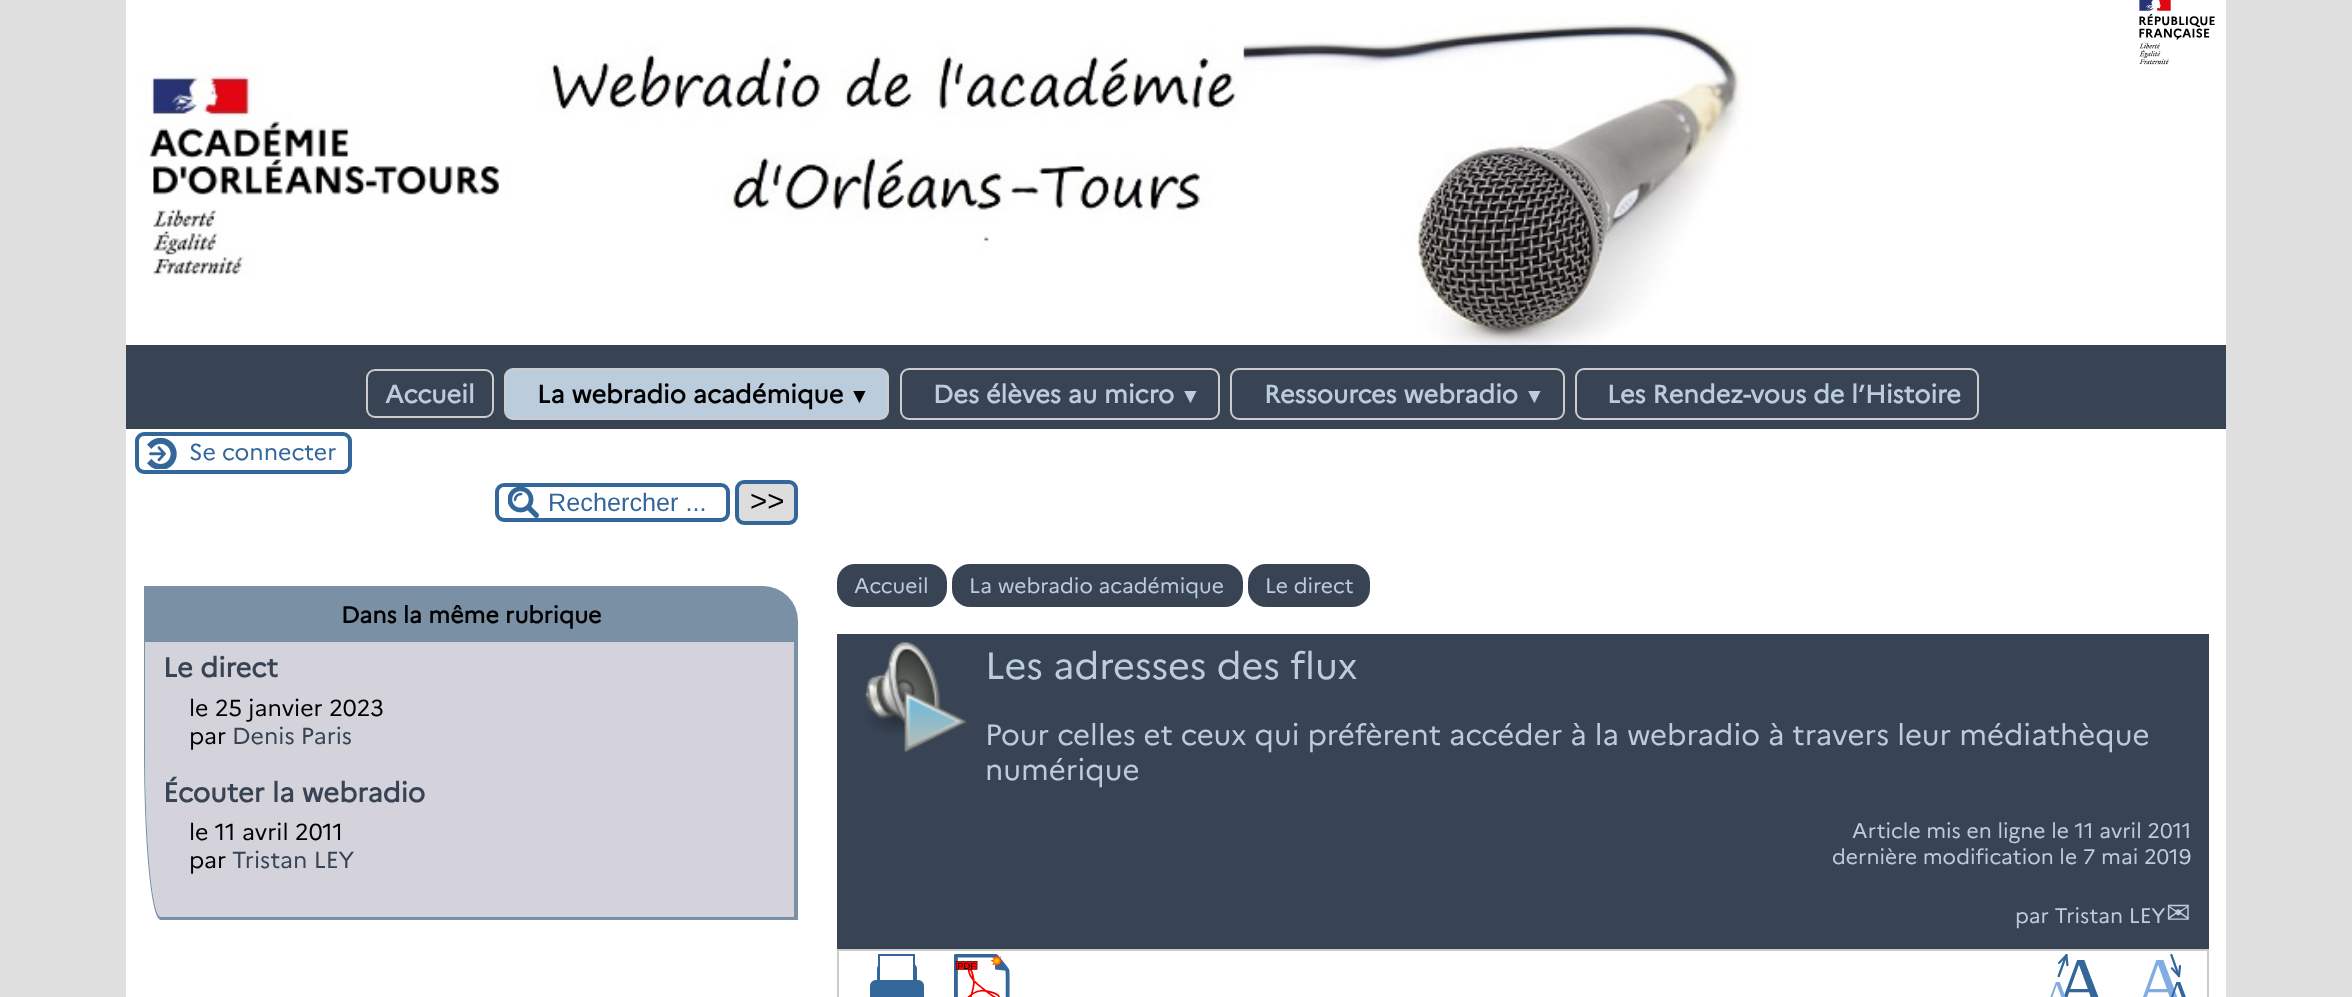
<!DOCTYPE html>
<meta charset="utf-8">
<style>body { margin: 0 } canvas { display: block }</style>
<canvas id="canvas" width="2352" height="997"></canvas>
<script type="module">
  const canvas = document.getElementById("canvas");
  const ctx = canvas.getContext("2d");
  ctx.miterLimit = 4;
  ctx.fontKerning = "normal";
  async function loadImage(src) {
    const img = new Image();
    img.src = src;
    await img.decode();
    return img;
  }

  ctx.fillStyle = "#dfdfdf";
  ctx.fillRect(0, 0, 2352, 997);
  ctx.fillStyle = "#ffffff";
  ctx.fillRect(126, 429, 2100, 568);
  ctx.fillStyle = "#384454";
  ctx.fillRect(126, 345, 2100, 84);
  ctx.drawImage(await loadImage("img1.png"), 126, 0, 2100, 345);
  ctx.drawImage(await loadImage("img2.png"), 2139, 0, 76, 65);
  ctx.beginPath();
  ctx.roundRect(367, 370, 126, 47, 8);
  ctx.strokeStyle = "#cccccc";
  ctx.lineWidth = 2;
  ctx.stroke();
  ctx.font = "bold 25.25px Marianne";
  ctx.fillStyle = "#bbccdd";
  ctx.fillText("Accueil", 385, 403);
  ctx.beginPath();
  ctx.roundRect(505, 369, 383, 50, 8);
  ctx.fill();
  ctx.stroke();
  ctx.fillStyle = "#000000";
  ctx.fillText("La webradio académique", 537, 403);
  ctx.font = "bold 21px Liberation Serif";
  ctx.fillText("▼", 849, 403);
  ctx.beginPath();
  ctx.roundRect(901, 369, 318, 50, 8);
  ctx.stroke();
  ctx.font = "bold 25.25px Marianne";
  ctx.fillStyle = "#bbccdd";
  ctx.fillText("Des élèves au micro", 933, 403);
  ctx.font = "bold 21px Liberation Serif";
  ctx.fillText("▼", 1180, 403);
  ctx.beginPath();
  ctx.roundRect(1231, 369, 333, 50, 8);
  ctx.stroke();
  ctx.font = "bold 25.25px Marianne";
  ctx.fillText("Ressources webradio", 1264, 403);
  ctx.font = "bold 21px Liberation Serif";
  ctx.fillText("▼", 1524, 403);
  ctx.beginPath();
  ctx.roundRect(1576, 369, 402, 50, 8);
  ctx.stroke();
  ctx.font = "bold 25.25px Marianne";
  ctx.fillText("Les Rendez-vous de l’Histoire", 1607, 403);
  ctx.drawImage(await loadImage("img3.png"), 147, 438, 30, 31);
  ctx.beginPath();
  ctx.roundRect(137, 434, 213, 38, 7);
  ctx.strokeStyle = "#336699";
  ctx.lineWidth = 4;
  ctx.stroke();
  ctx.font = "23.1px Marianne";
  ctx.fillStyle = "#336699";
  ctx.fillText("Se connecter", 189, 460);
  ctx.drawImage(await loadImage("img4.png"), 508, 487, 31, 31);
  ctx.beginPath();
  ctx.roundRect(497, 485, 231, 35, 7);
  ctx.stroke();
  ctx.font = "25.25px Liberation Sans";
  ctx.fillText("Rechercher ...", 548, 511);
  ctx.fillStyle = "#dddddd";
  ctx.beginPath();
  ctx.roundRect(737, 482, 59, 41, 7);
  ctx.fill();
  ctx.stroke();
  ctx.font = "29.4px Liberation Sans";
  ctx.fillStyle = "#000000";
  ctx.fillText(">>", 750, 511);
  ctx.fillStyle = "#7a90a4";
  ctx.beginPath();
  ctx.roundRect(144, 586, 654, 56, [0, 35, 0, 0]);
  ctx.fill();
  ctx.font = "bold 23.1px Marianne";
  ctx.fillStyle = "#000000";
  ctx.fillText("Dans la même rubrique", 341, 623);
  ctx.fillStyle = "#d4d3dc";
  ctx.beginPath();
  ctx.moveTo(145, 642);
  ctx.lineTo(794, 642);
  ctx.lineTo(794, 917);
  ctx.lineTo(161, 917);
  ctx.bezierCurveTo(152, 917, 145, 840, 145, 746);
  ctx.closePath();
  ctx.fill();
  ctx.fillStyle = "#7a90a4";
  ctx.beginPath();
  ctx.moveTo(144, 642);
  ctx.lineTo(798, 642);
  ctx.lineTo(798, 920);
  ctx.lineTo(161, 920);
  ctx.bezierCurveTo(151, 920, 144, 842, 144, 746);
  ctx.closePath();
  ctx.moveTo(145, 642);
  ctx.lineTo(794, 642);
  ctx.lineTo(794, 917);
  ctx.lineTo(161, 917);
  ctx.bezierCurveTo(152, 917, 145, 840, 145, 746);
  ctx.closePath();
  ctx.fill("evenodd");
  ctx.font = "bold 27.25px Marianne";
  ctx.fillStyle = "#384454";
  ctx.fillText("Le direct", 163, 677);
  ctx.font = "23.1px Marianne";
  ctx.fillStyle = "#000000";
  ctx.fillText("le 25 janvier 2023", 189, 716);
  ctx.fillText("par", 189, 744);
  ctx.fillStyle = "#384454";
  ctx.fillText("Denis Paris", 232, 744);
  ctx.font = "bold 27.25px Marianne";
  ctx.fillText("Écouter la webradio", 163, 802);
  ctx.font = "23.1px Marianne";
  ctx.fillStyle = "#000000";
  ctx.fillText("le 11 avril 2011", 189, 840);
  ctx.fillText("par", 189, 868);
  ctx.fillStyle = "#384454";
  ctx.fillText("Tristan LEY", 232, 868);
  ctx.beginPath();
  ctx.roundRect(837, 564, 110, 43, 18);
  ctx.fill();
  ctx.font = "21px Marianne";
  ctx.fillStyle = "#bbccdd";
  ctx.fillText("Accueil", 854, 593);
  ctx.fillStyle = "#384454";
  ctx.beginPath();
  ctx.roundRect(952, 564, 291, 43, 18);
  ctx.fill();
  ctx.fillStyle = "#bbccdd";
  ctx.fillText("La webradio académique", 969, 593);
  ctx.fillStyle = "#384454";
  ctx.beginPath();
  ctx.roundRect(1248, 564, 122, 43, 18);
  ctx.fill();
  ctx.fillStyle = "#bbccdd";
  ctx.fillText("Le direct", 1265, 593);
  ctx.fillStyle = "#384454";
  ctx.fillRect(837, 634, 1372, 315);
  ctx.drawImage(await loadImage("img5.png"), 864, 642, 103, 111);
  ctx.font = "37.75px Marianne";
  ctx.fillStyle = "#bbccdd";
  ctx.fillText("Les adresses des flux", 985, 679);
  ctx.font = "29.4px Marianne";
  ctx.fillText("Pour celles et ceux qui préfèrent accéder à la webradio à travers leur médiathèque", 985, 745);
  ctx.fillText("numérique", 985, 780);
  ctx.font = "21px Marianne";
  ctx.fillText("Article mis en ligne le 11 avril 2011", 1852, 838);
  ctx.fillText("dernière modification le 7 mai 2019", 1832, 864);
  ctx.fillText("par Tristan LEY", 2015, 923);
  ctx.font = "29.4px DejaVu Sans";
  ctx.fillText("✉", 2166, 923);
  ctx.strokeStyle = "#cccccc";
  ctx.lineWidth = 2;
  ctx.strokeRect(838, 950, 1370, 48);
  ctx.drawImage(await loadImage("img6.png"), 870, 954, 54, 43);
  ctx.drawImage(await loadImage("img7.png"), 954, 954, 56, 43);
  ctx.drawImage(await loadImage("img8.png"), 2050, 954, 49, 43);
  ctx.drawImage(await loadImage("img9.png"), 2143, 954, 43, 43);
</script>
